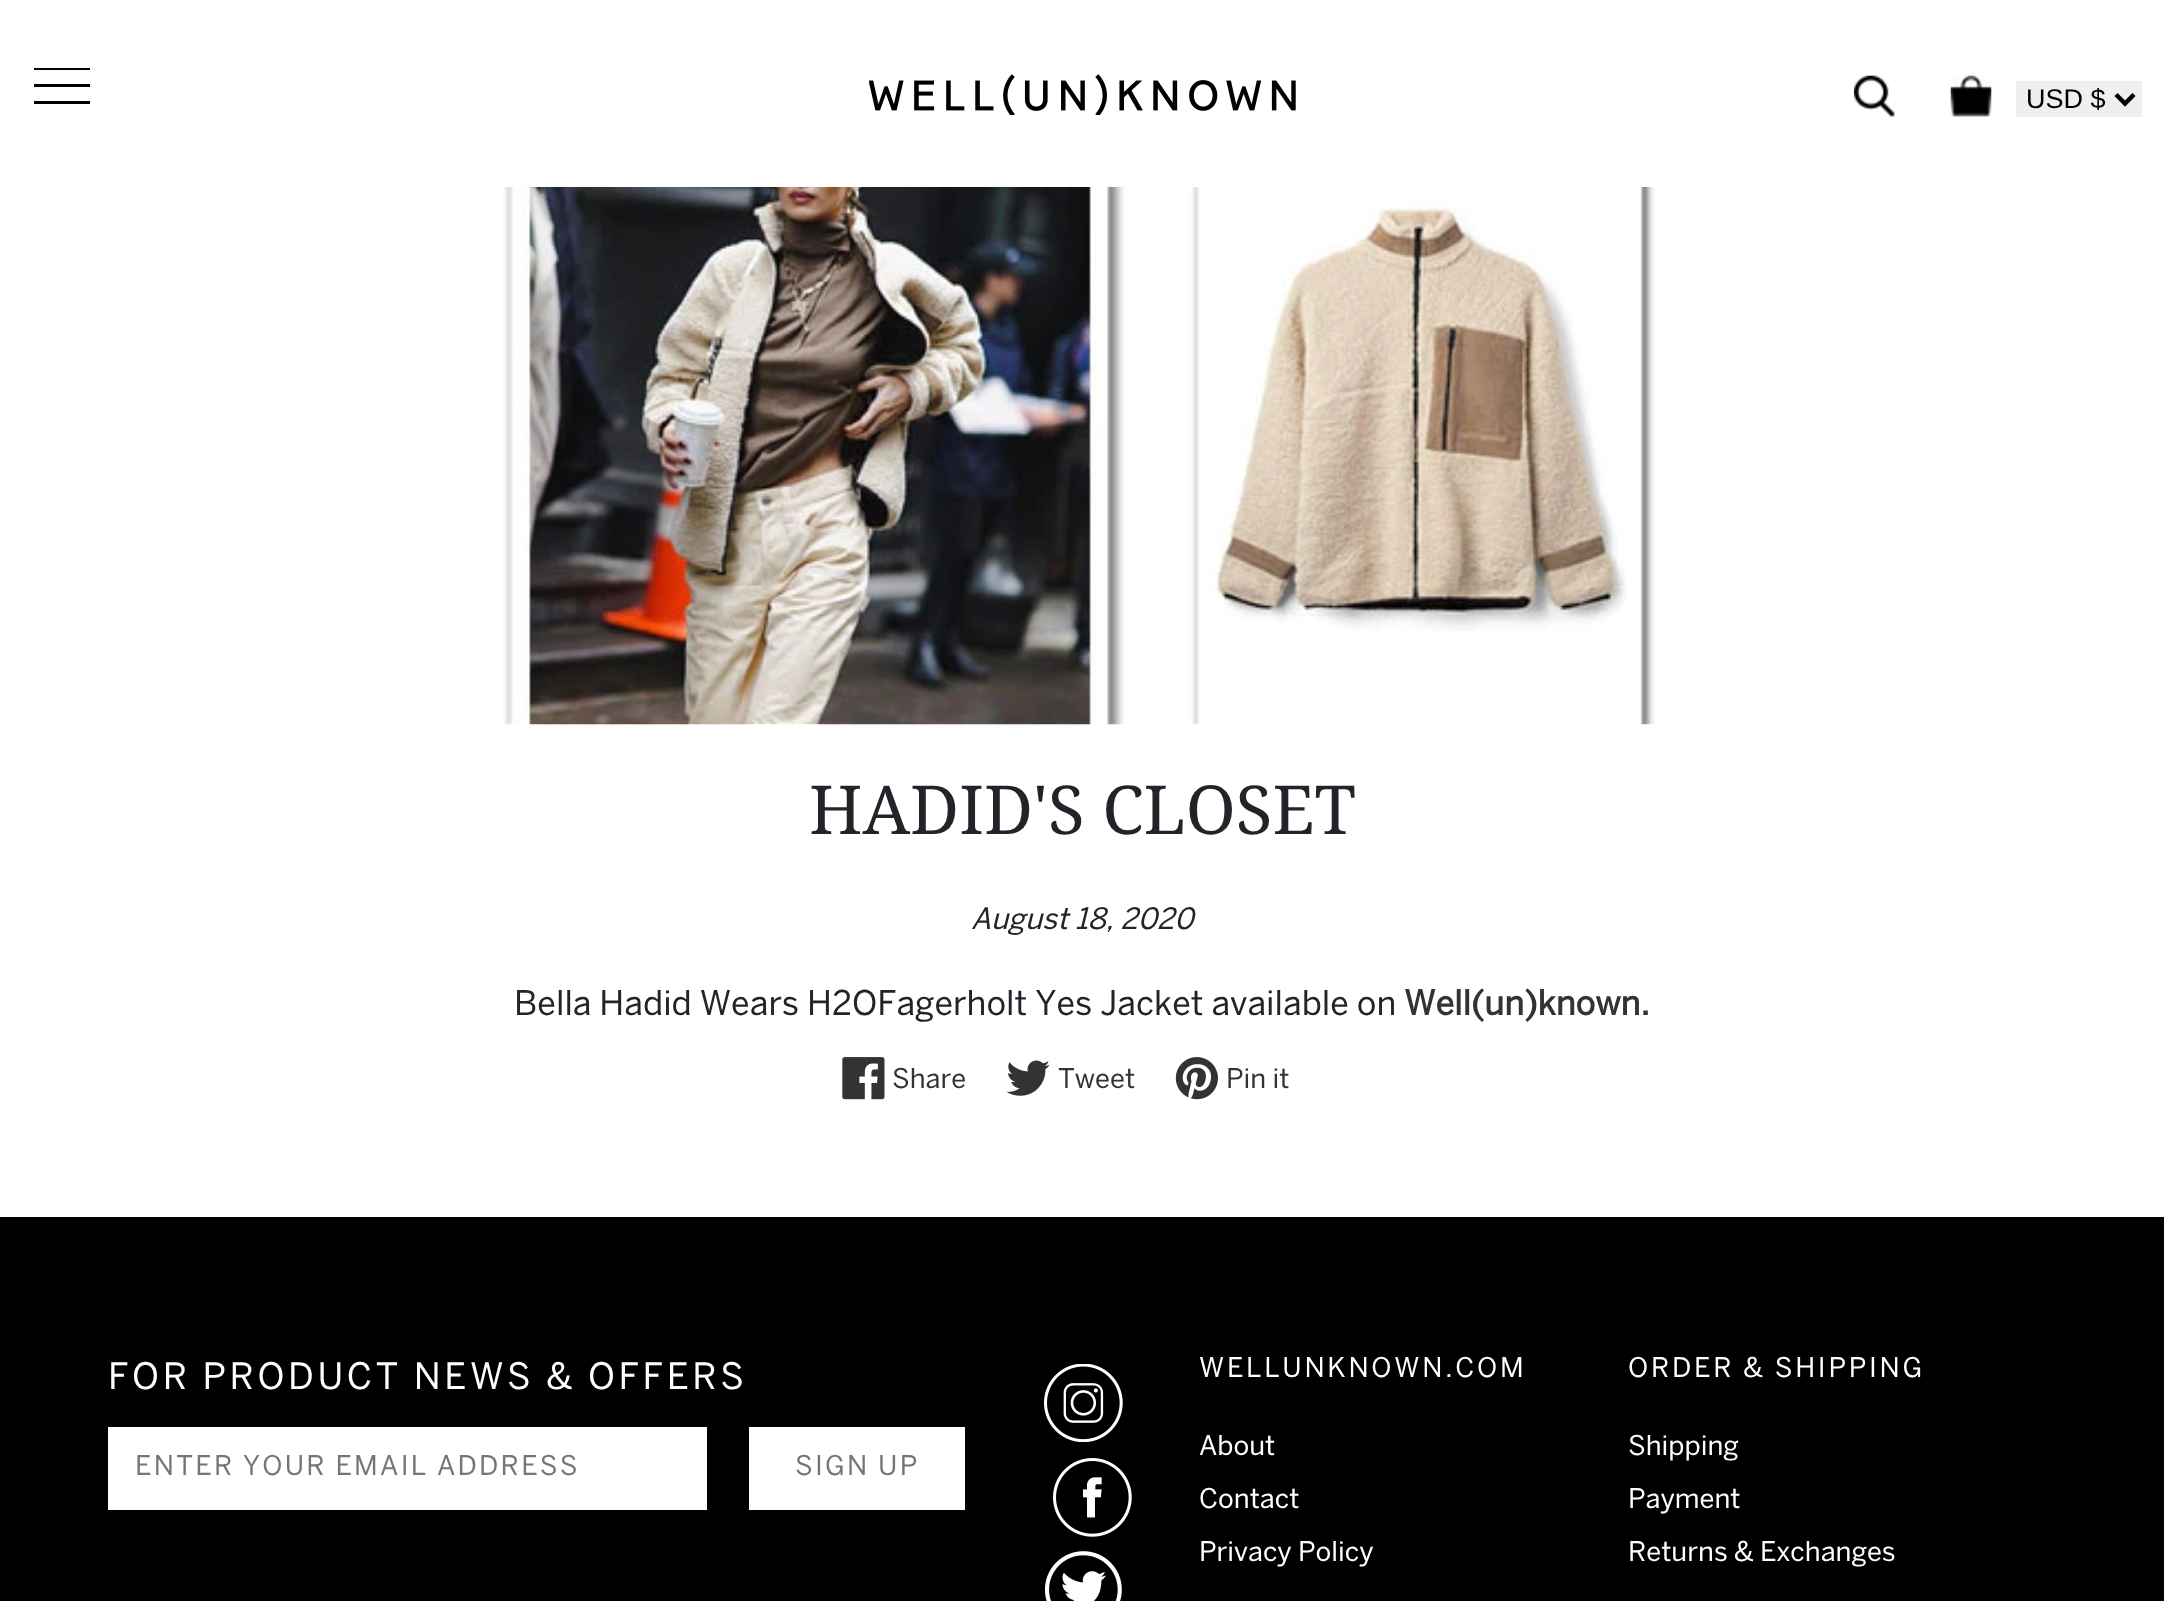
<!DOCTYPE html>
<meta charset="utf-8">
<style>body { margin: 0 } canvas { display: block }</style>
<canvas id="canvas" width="2164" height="1601"></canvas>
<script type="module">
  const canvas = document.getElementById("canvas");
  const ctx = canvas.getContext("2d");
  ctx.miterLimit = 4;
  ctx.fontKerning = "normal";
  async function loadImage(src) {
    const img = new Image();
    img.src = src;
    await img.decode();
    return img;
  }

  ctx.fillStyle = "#ffffff";
  ctx.fillRect(0, 0, 2164, 1601);
  ctx.fillStyle = "#000000";
  ctx.fillRect(34, 68, 56, 2);
  ctx.fillRect(34, 84, 56, 3);
  ctx.fillRect(34, 101, 56, 3);
  ctx.drawImage(await loadImage("img1.png"), 869, 74, 427, 41);
  ctx.drawImage(await loadImage("img2.png"), 1854, 75, 41, 42);
  ctx.drawImage(await loadImage("img3.png"), 1950, 75, 42, 42);
  ctx.fillStyle = "#efefef";
  ctx.fillRect(2016, 81, 126, 36);
  ctx.beginPath();
  ctx.moveTo(2116, 94.5);
  ctx.lineTo(2125, 103.5);
  ctx.lineTo(2134, 94.5);
  ctx.strokeStyle = "#000000";
  ctx.lineWidth = 4.5;
  ctx.stroke();
  ctx.font = "27px Liberation Sans";
  ctx.fillStyle = "#000000";
  ctx.fillText("USD $", 2026, 108);
  ctx.drawImage(await loadImage("img4.png"), 503, 187, 1152, 538);
  ctx.font = "67.5px Noto Serif";
  ctx.fillStyle = "#212529";
  ctx.fillText("HADID'S CLOSET", 809, 834);
  ctx.font = "italic 29.25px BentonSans";
  ctx.fillText("August 18, 2020", 971, 929);
  ctx.font = "33.75px BentonSans";
  ctx.fillText("Bella Hadid Wears H2OFagerholt Yes Jacket available on", 514, 1015);
  ctx.font = "bold 33.75px BentonSans";
  ctx.fillStyle = "#333333";
  ctx.fillText("Well(un)known.", 1404, 1015);
  ctx.drawImage(await loadImage("img5.png"), 842, 1057, 43, 43);
  ctx.font = "27px BentonSans";
  ctx.fillText("Share", 892, 1088);
  ctx.drawImage(await loadImage("img6.png"), 1006, 1060, 44, 36);
  ctx.fillText("Tweet", 1058, 1088);
  ctx.drawImage(await loadImage("img7.png"), 1175, 1057, 43, 43);
  ctx.fillText("Pin it", 1226, 1088);
  ctx.fillStyle = "#000000";
  ctx.fillRect(0, 1217, 2164, 384);
  ctx.letterSpacing = "3.6px";
  ctx.font = "36px BentonSans";
  ctx.fillStyle = "#ffffff";
  ctx.fillText("FOR PRODUCT NEWS & OFFERS", 108, 1389);
  ctx.fillRect(108, 1427, 599, 83);
  ctx.letterSpacing = "2.25px";
  ctx.font = "27px BentonSans";
  ctx.fillStyle = "#757575";
  ctx.fillText("ENTER YOUR EMAIL ADDRESS", 135, 1475);
  ctx.fillStyle = "#ffffff";
  ctx.fillRect(749, 1427, 216, 83);
  ctx.fillStyle = "#757575";
  ctx.fillText("SIGN UP", 795, 1475);
  ctx.drawImage(await loadImage("img8.png"), 1044, 1364, 79, 78);
  ctx.drawImage(await loadImage("img9.png"), 1053, 1458, 79, 79);
  ctx.drawImage(await loadImage("img10.png"), 1044, 1551, 78, 50);
  ctx.letterSpacing = "2.75px";
  ctx.fillStyle = "#ffffff";
  ctx.fillText("WELLUNKNOWN.COM", 1199, 1377);
  ctx.letterSpacing = "0px";
  ctx.fillText("About", 1199, 1455);
  ctx.fillText("Contact", 1199, 1508);
  ctx.fillText("Privacy Policy", 1199, 1561);
  ctx.letterSpacing = "2.75px";
  ctx.fillText("ORDER & SHIPPING", 1628, 1377);
  ctx.letterSpacing = "0px";
  ctx.fillText("Shipping", 1628, 1455);
  ctx.fillText("Payment", 1628, 1508);
  ctx.fillText("Returns & Exchanges", 1628, 1561);
</script>
